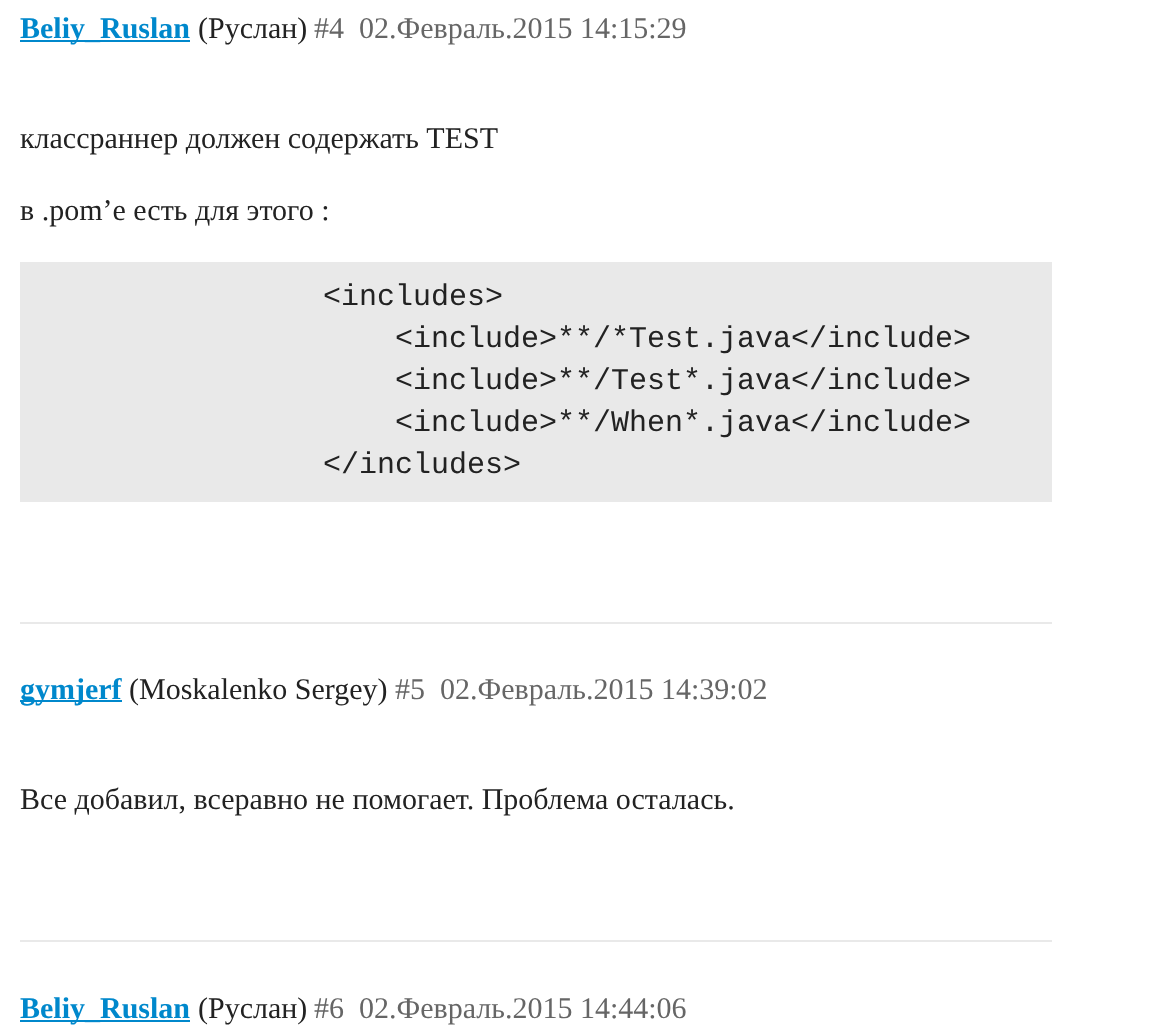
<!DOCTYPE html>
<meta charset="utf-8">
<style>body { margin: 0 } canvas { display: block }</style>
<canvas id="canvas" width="1166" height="1036"></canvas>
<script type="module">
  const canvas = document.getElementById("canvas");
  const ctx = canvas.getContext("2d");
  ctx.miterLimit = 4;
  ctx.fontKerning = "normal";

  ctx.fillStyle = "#ffffff";
  ctx.fillRect(0, 0, 1166, 1036);
  ctx.fillStyle = "#0088cc";
  ctx.fillRect(20, 40, 170, 2);
  ctx.font = "bold 30px Liberation Serif";
  ctx.fillText("Beliy_Ruslan", 20, 38);
  ctx.font = "30px Liberation Serif";
  ctx.fillStyle = "#222222";
  ctx.fillText("(Руслан)", 198, 38);
  ctx.fillStyle = "#666666";
  ctx.fillText("#4", 314, 38);
  ctx.fillText("02.Февраль.2015 14:15:29", 359, 38);
  ctx.fillStyle = "#222222";
  ctx.fillText("классраннер должен содержать TEST", 20, 148);
  ctx.fillText("в .pom’e есть для этого :", 20, 220);
  ctx.fillStyle = "#e9e9e9";
  ctx.fillRect(20, 262, 1032, 240);
  ctx.font = "30px Liberation Mono";
  ctx.fillStyle = "#222222";
  ctx.fillText("<includes>", 323, 305);
  ctx.fillText("<include>**/*Test.java<\/include>", 395, 347);
  ctx.fillText("<include>**/Test*.java<\/include>", 395, 389);
  ctx.fillText("<include>**/When*.java<\/include>", 395, 431);
  ctx.fillText("<\/includes>", 323, 473);
  ctx.fillStyle = "#e9e9e9";
  ctx.fillRect(20, 622, 1032, 2);
  ctx.fillStyle = "#0088cc";
  ctx.fillRect(20, 700, 102, 2);
  ctx.font = "bold 30px Liberation Serif";
  ctx.fillText("gymjerf", 20, 699);
  ctx.font = "30px Liberation Serif";
  ctx.fillStyle = "#222222";
  ctx.fillText("(Moskalenko Sergey)", 129, 699);
  ctx.fillStyle = "#666666";
  ctx.fillText("#5", 395, 699);
  ctx.fillText("02.Февраль.2015 14:39:02", 440, 699);
  ctx.fillStyle = "#222222";
  ctx.fillText("Все добавил, всеравно не помогает. Проблема осталась.", 20, 809);
  ctx.fillStyle = "#e9e9e9";
  ctx.fillRect(20, 940, 1032, 2);
  ctx.fillStyle = "#0088cc";
  ctx.fillRect(20, 1020, 170, 2);
  ctx.font = "bold 30px Liberation Serif";
  ctx.fillText("Beliy_Ruslan", 20, 1018);
  ctx.font = "30px Liberation Serif";
  ctx.fillStyle = "#222222";
  ctx.fillText("(Руслан)", 198, 1018);
  ctx.fillStyle = "#666666";
  ctx.fillText("#6", 314, 1018);
  ctx.fillText("02.Февраль.2015 14:44:06", 359, 1018);
</script>
